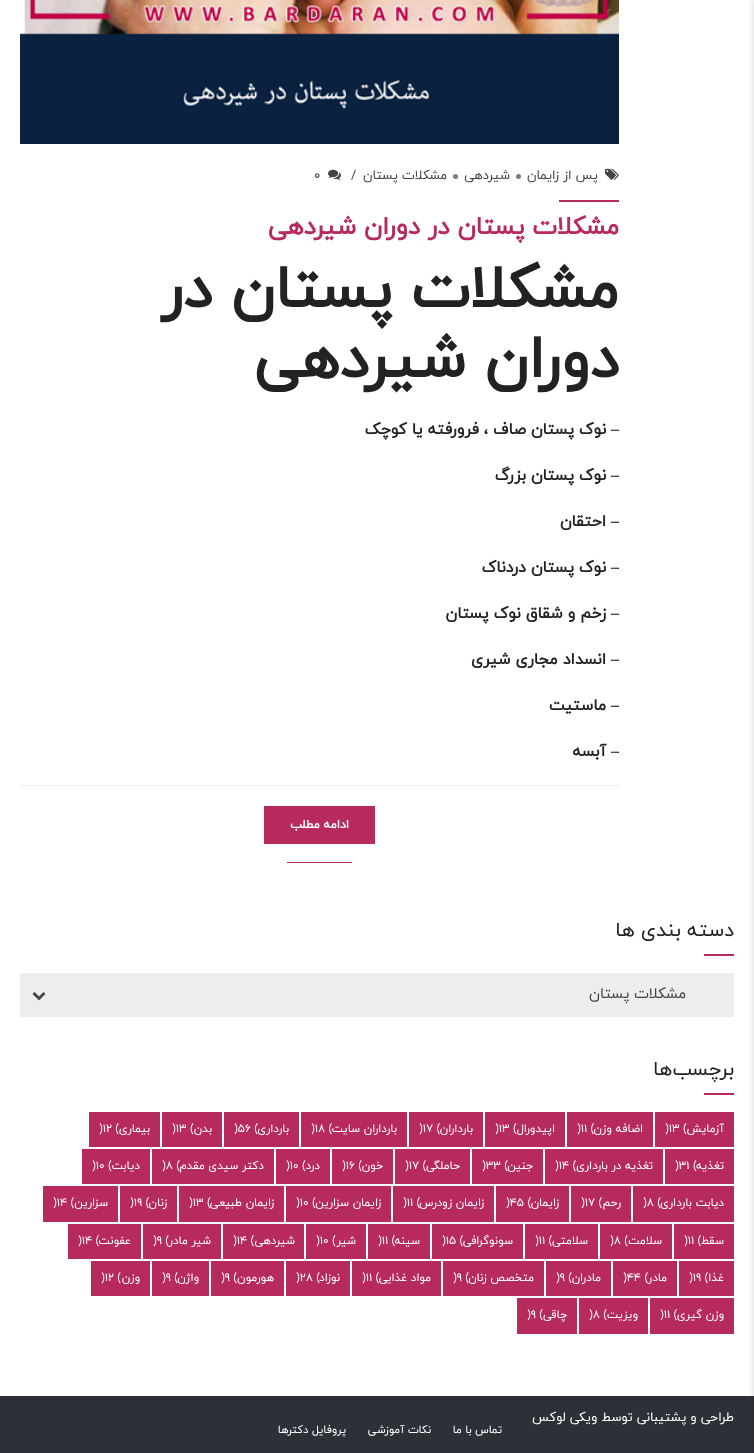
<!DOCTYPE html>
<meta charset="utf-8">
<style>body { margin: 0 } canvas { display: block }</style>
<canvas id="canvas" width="754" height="1453"></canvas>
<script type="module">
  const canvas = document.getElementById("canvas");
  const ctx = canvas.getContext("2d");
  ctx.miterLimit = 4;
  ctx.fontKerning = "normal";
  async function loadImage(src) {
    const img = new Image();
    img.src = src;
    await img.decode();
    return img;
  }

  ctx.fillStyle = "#ffffff";
  ctx.fillRect(0, 0, 754, 1453);
  ctx.fillStyle = "#2e3037";
  ctx.fillRect(0, 1396, 754, 57);
  ctx.fillStyle = "rgba(0, 0, 0, 0.1)";
  ctx.filter = "blur(2.5px)";
  ctx.beginPath();
  ctx.rect(752, 0, 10, 1453);
  ctx.fill();
  ctx.filter = "none";
  ctx.drawImage(await loadImage("img1.png"), 20, 0, 599, 144);
  ctx.drawImage(await loadImage("img2.png"), 605, 168, 14, 12);
  ctx.direction = "rtl";
  ctx.font = "13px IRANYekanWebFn";
  ctx.fillStyle = "#444444";
  ctx.fillText("پس از زایمان", 598, 179);
  ctx.fillStyle = "#7c7c7c";
  ctx.beginPath();
  ctx.arc(518.5, 176.5, 2.5, 0, Math.PI * 2);
  ctx.fill();
  ctx.fillStyle = "#444444";
  ctx.fillText("شیردهی", 510, 179);
  ctx.fillStyle = "#7c7c7c";
  ctx.beginPath();
  ctx.arc(455.5, 176.5, 2.5, 0, Math.PI * 2);
  ctx.fill();
  ctx.fillStyle = "#444444";
  ctx.fillText("مشکلات پستان", 447, 179);
  ctx.direction = "ltr";
  ctx.fillText("/", 351, 179);
  ctx.drawImage(await loadImage("img3.png"), 328, 169, 13, 11);
  ctx.fillText("0", 314, 179);
  ctx.fillStyle = "#b72a5e";
  ctx.fillRect(559, 200, 60, 2);
  ctx.direction = "rtl";
  ctx.font = "bold 25px IRANYekanWebFn";
  ctx.fillText("مشکلات پستان در دوران شیردهی", 619, 234);
  ctx.font = "bold 60px IRANYekanWebFn";
  ctx.fillStyle = "#222222";
  ctx.fillText("مشکلات پستان در", 619, 307);
  ctx.fillText("دوران شیردهی", 619, 377);
  ctx.font = "bold 16px Liberation Serif";
  ctx.fillText("–", 619, 434);
  ctx.font = "bold 16px IRANYekanWebFn";
  ctx.fillText("نوک پستان صاف ، فرورفته یا کوچک", 606, 434);
  ctx.font = "bold 16px Liberation Serif";
  ctx.fillText("–", 619, 480);
  ctx.font = "bold 16px IRANYekanWebFn";
  ctx.fillText("نوک پستان بزرگ", 606, 480);
  ctx.font = "bold 16px Liberation Serif";
  ctx.fillText("–", 619, 526);
  ctx.font = "bold 16px IRANYekanWebFn";
  ctx.fillText("احتقان", 606, 526);
  ctx.font = "bold 16px Liberation Serif";
  ctx.fillText("–", 619, 572);
  ctx.font = "bold 16px IRANYekanWebFn";
  ctx.fillText("نوک پستان دردناک", 606, 572);
  ctx.font = "bold 16px Liberation Serif";
  ctx.fillText("–", 619, 618);
  ctx.font = "bold 16px IRANYekanWebFn";
  ctx.fillText("زخم و شقاق نوک پستان", 606, 618);
  ctx.font = "bold 16px Liberation Serif";
  ctx.fillText("–", 619, 664);
  ctx.font = "bold 16px IRANYekanWebFn";
  ctx.fillText("انسداد مجاری شیری", 606, 664);
  ctx.font = "bold 16px Liberation Serif";
  ctx.fillText("–", 619, 710);
  ctx.font = "bold 16px IRANYekanWebFn";
  ctx.fillText("ماستیت", 606, 710);
  ctx.font = "bold 16px Liberation Serif";
  ctx.fillText("–", 619, 756);
  ctx.font = "bold 16px IRANYekanWebFn";
  ctx.fillText("آبسه", 606, 756);
  ctx.fillStyle = "#ededed";
  ctx.fillRect(20, 785, 599, 1);
  ctx.fillStyle = "#b72a5e";
  ctx.fillRect(264, 806, 111, 38);
  ctx.font = "bold 12px IRANYekanWebFn";
  ctx.fillStyle = "#ffffff";
  ctx.fillText("ادامه مطلب", 349, 828);
  ctx.fillStyle = "#b72a5e";
  ctx.fillRect(287, 862, 65, 1);
  ctx.font = "20px IRANYekanWebFn";
  ctx.fillStyle = "#222222";
  ctx.fillText("دسته بندی ها", 734, 936);
  ctx.fillStyle = "#b72a5e";
  ctx.fillRect(704, 954, 30, 2);
  ctx.fillStyle = "#ededed";
  ctx.fillRect(20, 973, 714, 44);
  ctx.font = "15px IRANYekanWebFn";
  ctx.fillStyle = "#444444";
  ctx.fillText("مشکلات پستان", 686, 998);
  ctx.drawImage(await loadImage("img4.png"), 32, 992, 14, 9);
  ctx.font = "20px IRANYekanWebFn";
  ctx.fillStyle = "#222222";
  ctx.fillText("برچسب‌ها", 734, 1075);
  ctx.fillStyle = "#b72a5e";
  ctx.fillRect(704, 1093, 30, 2);
  ctx.fillRect(655, 1112, 79, 35);
  ctx.font = "11.5px IRANYekanWebFn";
  ctx.fillStyle = "#ffffff";
  ctx.fillText("آزمایش", 724, 1132);
  ctx.direction = "ltr";
  ctx.fillText(")13 (", 665, 1132);
  ctx.fillStyle = "#b72a5e";
  ctx.fillRect(567, 1112, 86, 35);
  ctx.direction = "rtl";
  ctx.fillStyle = "#ffffff";
  ctx.fillText("اضافه وزن", 643, 1132);
  ctx.direction = "ltr";
  ctx.fillText(")11 (", 577, 1132);
  ctx.fillStyle = "#b72a5e";
  ctx.fillRect(485, 1112, 80, 35);
  ctx.direction = "rtl";
  ctx.fillStyle = "#ffffff";
  ctx.fillText("اپیدورال", 555, 1132);
  ctx.direction = "ltr";
  ctx.fillText(")13 (", 495, 1132);
  ctx.fillStyle = "#b72a5e";
  ctx.fillRect(409, 1112, 74, 35);
  ctx.direction = "rtl";
  ctx.fillStyle = "#ffffff";
  ctx.fillText("بارداران", 473, 1132);
  ctx.direction = "ltr";
  ctx.fillText(")17 (", 419, 1132);
  ctx.fillStyle = "#b72a5e";
  ctx.fillRect(301, 1112, 106, 35);
  ctx.direction = "rtl";
  ctx.fillStyle = "#ffffff";
  ctx.fillText("بارداران سایت", 397, 1132);
  ctx.direction = "ltr";
  ctx.fillText(")18 (", 311, 1132);
  ctx.fillStyle = "#b72a5e";
  ctx.fillRect(224, 1112, 75, 35);
  ctx.direction = "rtl";
  ctx.fillStyle = "#ffffff";
  ctx.fillText("بارداری", 289, 1132);
  ctx.direction = "ltr";
  ctx.fillText(")56 (", 234, 1132);
  ctx.fillStyle = "#b72a5e";
  ctx.fillRect(162, 1112, 60, 35);
  ctx.direction = "rtl";
  ctx.fillStyle = "#ffffff";
  ctx.fillText("بدن", 212, 1132);
  ctx.direction = "ltr";
  ctx.fillText(")13 (", 172, 1132);
  ctx.fillStyle = "#b72a5e";
  ctx.fillRect(89, 1112, 71, 35);
  ctx.direction = "rtl";
  ctx.fillStyle = "#ffffff";
  ctx.fillText("بیماری", 150, 1132);
  ctx.direction = "ltr";
  ctx.fillText(")12 (", 99, 1132);
  ctx.fillStyle = "#b72a5e";
  ctx.fillRect(665, 1149, 69, 35);
  ctx.direction = "rtl";
  ctx.fillStyle = "#ffffff";
  ctx.fillText("تغذیه", 724, 1169);
  ctx.direction = "ltr";
  ctx.fillText(")31 (", 675, 1169);
  ctx.fillStyle = "#b72a5e";
  ctx.fillRect(545, 1149, 118, 35);
  ctx.direction = "rtl";
  ctx.fillStyle = "#ffffff";
  ctx.fillText("تغذیه در بارداری", 653, 1169);
  ctx.direction = "ltr";
  ctx.fillText(")14 (", 555, 1169);
  ctx.fillStyle = "#b72a5e";
  ctx.fillRect(472, 1149, 71, 35);
  ctx.direction = "rtl";
  ctx.fillStyle = "#ffffff";
  ctx.fillText("جنین", 533, 1169);
  ctx.direction = "ltr";
  ctx.fillText(")33 (", 482, 1169);
  ctx.fillStyle = "#b72a5e";
  ctx.fillRect(395, 1149, 75, 35);
  ctx.direction = "rtl";
  ctx.fillStyle = "#ffffff";
  ctx.fillText("حاملگی", 460, 1169);
  ctx.direction = "ltr";
  ctx.fillText(")17 (", 405, 1169);
  ctx.fillStyle = "#b72a5e";
  ctx.fillRect(332, 1149, 61, 35);
  ctx.direction = "rtl";
  ctx.fillStyle = "#ffffff";
  ctx.fillText("خون", 383, 1169);
  ctx.direction = "ltr";
  ctx.fillText(")16 (", 342, 1169);
  ctx.fillStyle = "#b72a5e";
  ctx.fillRect(276, 1149, 54, 35);
  ctx.direction = "rtl";
  ctx.fillStyle = "#ffffff";
  ctx.fillText("درد", 320, 1169);
  ctx.direction = "ltr";
  ctx.fillText(")10 (", 286, 1169);
  ctx.fillStyle = "#b72a5e";
  ctx.fillRect(152, 1149, 122, 35);
  ctx.direction = "rtl";
  ctx.fillStyle = "#ffffff";
  ctx.fillText("دکتر سیدی مقدم", 264, 1169);
  ctx.direction = "ltr";
  ctx.fillText(")8 (", 162, 1169);
  ctx.fillStyle = "#b72a5e";
  ctx.fillRect(82, 1149, 68, 35);
  ctx.direction = "rtl";
  ctx.fillStyle = "#ffffff";
  ctx.fillText("دیابت", 140, 1169);
  ctx.direction = "ltr";
  ctx.fillText(")10 (", 92, 1169);
  ctx.fillStyle = "#b72a5e";
  ctx.fillRect(633, 1186, 101, 36);
  ctx.direction = "rtl";
  ctx.fillStyle = "#ffffff";
  ctx.fillText("دیابت بارداری", 724, 1206);
  ctx.direction = "ltr";
  ctx.fillText(")8 (", 643, 1206);
  ctx.fillStyle = "#b72a5e";
  ctx.fillRect(571, 1186, 60, 36);
  ctx.direction = "rtl";
  ctx.fillStyle = "#ffffff";
  ctx.fillText("رحم", 621, 1206);
  ctx.direction = "ltr";
  ctx.fillText(")17 (", 581, 1206);
  ctx.fillStyle = "#b72a5e";
  ctx.fillRect(496, 1186, 73, 36);
  ctx.direction = "rtl";
  ctx.fillStyle = "#ffffff";
  ctx.fillText("زایمان", 559, 1206);
  ctx.direction = "ltr";
  ctx.fillText(")45 (", 506, 1206);
  ctx.fillStyle = "#b72a5e";
  ctx.fillRect(393, 1186, 101, 36);
  ctx.direction = "rtl";
  ctx.fillStyle = "#ffffff";
  ctx.fillText("زایمان زودرس", 484, 1206);
  ctx.direction = "ltr";
  ctx.fillText(")11 (", 403, 1206);
  ctx.fillStyle = "#b72a5e";
  ctx.fillRect(286, 1186, 105, 36);
  ctx.direction = "rtl";
  ctx.fillStyle = "#ffffff";
  ctx.fillText("زایمان سزارین", 381, 1206);
  ctx.direction = "ltr";
  ctx.fillText(")10 (", 296, 1206);
  ctx.fillStyle = "#b72a5e";
  ctx.fillRect(179, 1186, 105, 36);
  ctx.direction = "rtl";
  ctx.fillStyle = "#ffffff";
  ctx.fillText("زایمان طبیعی", 274, 1206);
  ctx.direction = "ltr";
  ctx.fillText(")13 (", 189, 1206);
  ctx.fillStyle = "#b72a5e";
  ctx.fillRect(120, 1186, 57, 36);
  ctx.direction = "rtl";
  ctx.fillStyle = "#ffffff";
  ctx.fillText("زنان", 167, 1206);
  ctx.direction = "ltr";
  ctx.fillText(")19 (", 130, 1206);
  ctx.fillStyle = "#b72a5e";
  ctx.fillRect(43, 1186, 75, 36);
  ctx.direction = "rtl";
  ctx.fillStyle = "#ffffff";
  ctx.fillText("سزارین", 108, 1206);
  ctx.direction = "ltr";
  ctx.fillText(")14 (", 53, 1206);
  ctx.fillStyle = "#b72a5e";
  ctx.fillRect(674, 1224, 60, 35);
  ctx.direction = "rtl";
  ctx.fillStyle = "#ffffff";
  ctx.fillText("سقط", 724, 1244);
  ctx.direction = "ltr";
  ctx.fillText(")11 (", 684, 1244);
  ctx.fillStyle = "#b72a5e";
  ctx.fillRect(600, 1224, 72, 35);
  ctx.direction = "rtl";
  ctx.fillStyle = "#ffffff";
  ctx.fillText("سلامت", 662, 1244);
  ctx.direction = "ltr";
  ctx.fillText(")8 (", 610, 1244);
  ctx.fillStyle = "#b72a5e";
  ctx.fillRect(525, 1224, 73, 35);
  ctx.direction = "rtl";
  ctx.fillStyle = "#ffffff";
  ctx.fillText("سلامتی", 588, 1244);
  ctx.direction = "ltr";
  ctx.fillText(")11 (", 535, 1244);
  ctx.fillStyle = "#b72a5e";
  ctx.fillRect(432, 1224, 91, 35);
  ctx.direction = "rtl";
  ctx.fillStyle = "#ffffff";
  ctx.fillText("سونوگرافی", 513, 1244);
  ctx.direction = "ltr";
  ctx.fillText(")15 (", 442, 1244);
  ctx.fillStyle = "#b72a5e";
  ctx.fillRect(368, 1224, 62, 35);
  ctx.direction = "rtl";
  ctx.fillStyle = "#ffffff";
  ctx.fillText("سینه", 420, 1244);
  ctx.direction = "ltr";
  ctx.fillText(")11 (", 378, 1244);
  ctx.fillStyle = "#b72a5e";
  ctx.fillRect(306, 1224, 60, 35);
  ctx.direction = "rtl";
  ctx.fillStyle = "#ffffff";
  ctx.fillText("شیر", 356, 1244);
  ctx.direction = "ltr";
  ctx.fillText(")10 (", 316, 1244);
  ctx.fillStyle = "#b72a5e";
  ctx.fillRect(223, 1224, 81, 35);
  ctx.direction = "rtl";
  ctx.fillStyle = "#ffffff";
  ctx.fillText("شیردهی", 295, 1244);
  ctx.direction = "ltr";
  ctx.fillText(")14 (", 233, 1244);
  ctx.fillStyle = "#b72a5e";
  ctx.fillRect(143, 1224, 78, 35);
  ctx.direction = "rtl";
  ctx.fillStyle = "#ffffff";
  ctx.fillText("شیر مادر", 211, 1244);
  ctx.direction = "ltr";
  ctx.fillText(")9 (", 153, 1244);
  ctx.fillStyle = "#b72a5e";
  ctx.fillRect(68, 1224, 73, 35);
  ctx.direction = "rtl";
  ctx.fillStyle = "#ffffff";
  ctx.fillText("عفونت", 131, 1244);
  ctx.direction = "ltr";
  ctx.fillText(")14 (", 78, 1244);
  ctx.fillStyle = "#b72a5e";
  ctx.fillRect(679, 1261, 55, 35);
  ctx.direction = "rtl";
  ctx.fillStyle = "#ffffff";
  ctx.fillText("غذا", 724, 1281);
  ctx.direction = "ltr";
  ctx.fillText(")19 (", 689, 1281);
  ctx.fillStyle = "#b72a5e";
  ctx.fillRect(613, 1261, 64, 35);
  ctx.direction = "rtl";
  ctx.fillStyle = "#ffffff";
  ctx.fillText("مادر", 667, 1281);
  ctx.direction = "ltr";
  ctx.fillText(")44 (", 623, 1281);
  ctx.fillStyle = "#b72a5e";
  ctx.fillRect(546, 1261, 65, 35);
  ctx.direction = "rtl";
  ctx.fillStyle = "#ffffff";
  ctx.fillText("مادران", 601, 1281);
  ctx.direction = "ltr";
  ctx.fillText(")9 (", 556, 1281);
  ctx.fillStyle = "#b72a5e";
  ctx.fillRect(443, 1261, 101, 35);
  ctx.direction = "rtl";
  ctx.fillStyle = "#ffffff";
  ctx.fillText("متخصص زنان", 534, 1281);
  ctx.direction = "ltr";
  ctx.fillText(")9 (", 453, 1281);
  ctx.fillStyle = "#b72a5e";
  ctx.fillRect(352, 1261, 89, 35);
  ctx.direction = "rtl";
  ctx.fillStyle = "#ffffff";
  ctx.fillText("مواد غذایی", 431, 1281);
  ctx.direction = "ltr";
  ctx.fillText(")11 (", 362, 1281);
  ctx.fillStyle = "#b72a5e";
  ctx.fillRect(286, 1261, 64, 35);
  ctx.direction = "rtl";
  ctx.fillStyle = "#ffffff";
  ctx.fillText("نوزاد", 340, 1281);
  ctx.direction = "ltr";
  ctx.fillText(")28 (", 296, 1281);
  ctx.fillStyle = "#b72a5e";
  ctx.fillRect(211, 1261, 73, 35);
  ctx.direction = "rtl";
  ctx.fillStyle = "#ffffff";
  ctx.fillText("هورمون", 274, 1281);
  ctx.direction = "ltr";
  ctx.fillText(")9 (", 221, 1281);
  ctx.fillStyle = "#b72a5e";
  ctx.fillRect(152, 1261, 57, 35);
  ctx.direction = "rtl";
  ctx.fillStyle = "#ffffff";
  ctx.fillText("واژن", 199, 1281);
  ctx.direction = "ltr";
  ctx.fillText(")9 (", 162, 1281);
  ctx.fillStyle = "#b72a5e";
  ctx.fillRect(91, 1261, 59, 35);
  ctx.direction = "rtl";
  ctx.fillStyle = "#ffffff";
  ctx.fillText("وزن", 140, 1281);
  ctx.direction = "ltr";
  ctx.fillText(")12 (", 101, 1281);
  ctx.fillStyle = "#b72a5e";
  ctx.fillRect(650, 1298, 84, 36);
  ctx.direction = "rtl";
  ctx.fillStyle = "#ffffff";
  ctx.fillText("وزن گیری", 724, 1318);
  ctx.direction = "ltr";
  ctx.fillText(")11 (", 660, 1318);
  ctx.fillStyle = "#b72a5e";
  ctx.fillRect(579, 1298, 69, 36);
  ctx.direction = "rtl";
  ctx.fillStyle = "#ffffff";
  ctx.fillText("ویزیت", 638, 1318);
  ctx.direction = "ltr";
  ctx.fillText(")8 (", 589, 1318);
  ctx.fillStyle = "#b72a5e";
  ctx.fillRect(517, 1298, 60, 36);
  ctx.direction = "rtl";
  ctx.fillStyle = "#ffffff";
  ctx.fillText("چاقی", 567, 1318);
  ctx.direction = "ltr";
  ctx.fillText(")9 (", 527, 1318);
  ctx.direction = "rtl";
  ctx.font = "13px IRANYekanWebFn";
  ctx.fillText("طراحی و پشتیبانی توسط ویکی لوکس", 734, 1421);
  ctx.font = "11px IRANYekanWebFn";
  ctx.fillText("تماس با ما", 502, 1433);
  ctx.fillText("نکات آموزشی", 431, 1433);
  ctx.fillText("پروفایل دکترها", 346, 1433);
</script>
